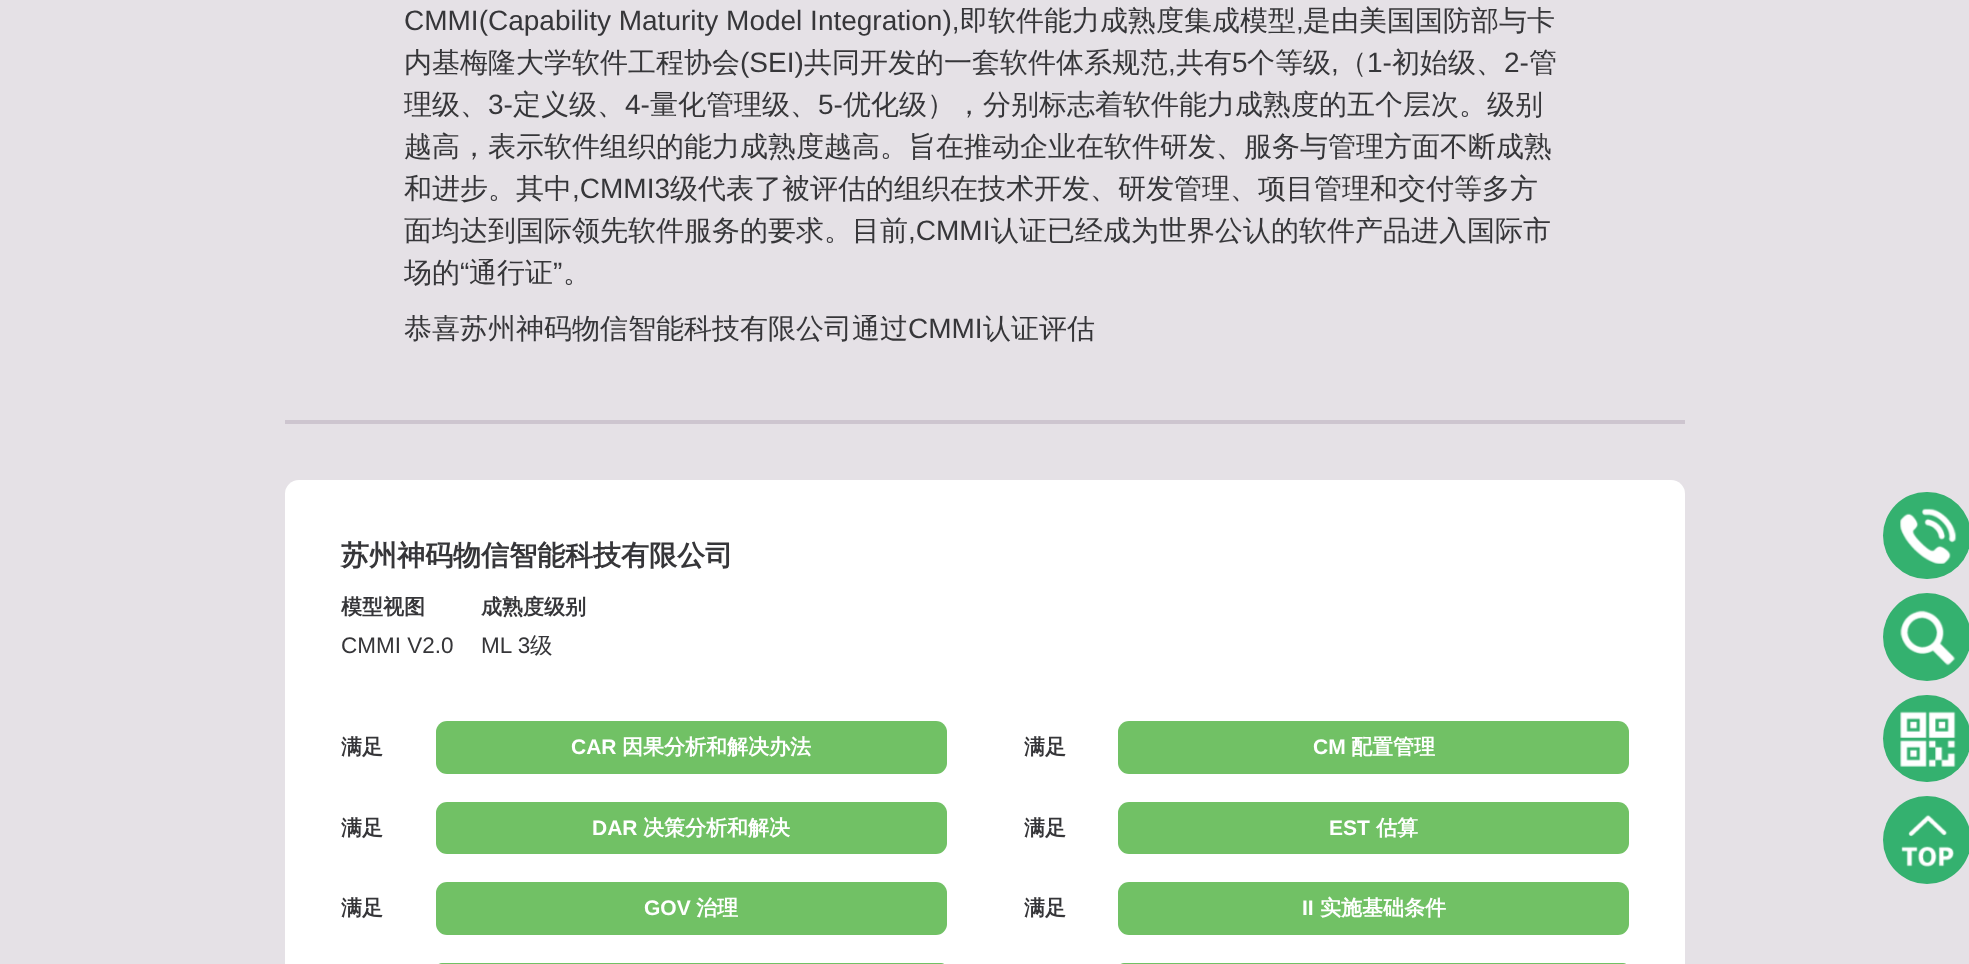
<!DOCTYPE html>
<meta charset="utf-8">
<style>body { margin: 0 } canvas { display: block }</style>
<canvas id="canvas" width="1969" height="964"></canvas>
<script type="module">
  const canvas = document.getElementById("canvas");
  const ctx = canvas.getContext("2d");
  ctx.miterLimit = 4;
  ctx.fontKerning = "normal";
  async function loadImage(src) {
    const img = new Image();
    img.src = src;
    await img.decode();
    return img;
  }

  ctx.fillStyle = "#e5e1e6";
  ctx.fillRect(0, 0, 1969, 964);
  ctx.font = "28px Liberation Sans";
  ctx.fillStyle = "#363639";
  ctx.fillText("CMMI(Capability Maturity Model Integration),", 404, 30);
  ctx.font = "500 28px WenQuanYi Zen Hei";
  ctx.fillText("即软件能力成熟度集成模型", 960, 30);
  ctx.font = "28px Liberation Sans";
  ctx.fillText(",", 1296, 30);
  ctx.font = "500 28px WenQuanYi Zen Hei";
  ctx.fillText("是由美国国防部与卡", 1303, 30);
  ctx.fillText("内基梅隆大学软件工程协会", 404, 72);
  ctx.font = "28px Liberation Sans";
  ctx.fillText("(SEI)", 740, 72);
  ctx.font = "500 28px WenQuanYi Zen Hei";
  ctx.fillText("共同开发的一套软件体系规范", 804, 72);
  ctx.font = "28px Liberation Sans";
  ctx.fillText(",", 1168, 72);
  ctx.font = "500 28px WenQuanYi Zen Hei";
  ctx.fillText("共有", 1176, 72);
  ctx.font = "28px Liberation Sans";
  ctx.fillText("5", 1232, 72);
  ctx.font = "500 28px WenQuanYi Zen Hei";
  ctx.fillText("个等级", 1247, 72);
  ctx.font = "28px Liberation Sans";
  ctx.fillText(",", 1331, 72);
  ctx.font = "500 28px WenQuanYi Zen Hei";
  ctx.fillText("（", 1339, 72);
  ctx.font = "28px Liberation Sans";
  ctx.fillText("1-", 1367, 72);
  ctx.font = "500 28px WenQuanYi Zen Hei";
  ctx.fillText("初始级、", 1392, 72);
  ctx.font = "28px Liberation Sans";
  ctx.fillText("2-", 1504, 72);
  ctx.font = "500 28px WenQuanYi Zen Hei";
  ctx.fillText("管", 1529, 72);
  ctx.fillText("理级、", 404, 114);
  ctx.font = "28px Liberation Sans";
  ctx.fillText("3-", 488, 114);
  ctx.font = "500 28px WenQuanYi Zen Hei";
  ctx.fillText("定义级、", 513, 114);
  ctx.font = "28px Liberation Sans";
  ctx.fillText("4-", 625, 114);
  ctx.font = "500 28px WenQuanYi Zen Hei";
  ctx.fillText("量化管理级、", 650, 114);
  ctx.font = "28px Liberation Sans";
  ctx.fillText("5-", 818, 114);
  ctx.font = "500 28px WenQuanYi Zen Hei";
  ctx.fillText("优化级），分别标志着软件能力成熟度的五个层次。级别", 843, 114);
  ctx.fillText("越高，表示软件组织的能力成熟度越高。旨在推动企业在软件研发、服务与管理方面不断成熟", 404, 156);
  ctx.fillText("和进步。其中", 404, 198);
  ctx.font = "28px Liberation Sans";
  ctx.fillText(",CMMI3", 572, 198);
  ctx.font = "500 28px WenQuanYi Zen Hei";
  ctx.fillText("级代表了被评估的组织在技术开发、研发管理、项目管理和交付等多方", 670, 198);
  ctx.fillText("面均达到国际领先软件服务的要求。目前", 404, 240);
  ctx.font = "28px Liberation Sans";
  ctx.fillText(",CMMI", 908, 240);
  ctx.font = "500 28px WenQuanYi Zen Hei";
  ctx.fillText("认证已经成为世界公认的软件产品进入国际市", 991, 240);
  ctx.fillText("场的", 404, 282);
  ctx.font = "28px Liberation Sans";
  ctx.fillText("“", 460, 282);
  ctx.font = "500 28px WenQuanYi Zen Hei";
  ctx.fillText("通行证", 469, 282);
  ctx.font = "28px Liberation Sans";
  ctx.fillText("”", 553, 282);
  ctx.font = "500 28px WenQuanYi Zen Hei";
  ctx.fillText("。", 563, 282);
  ctx.fillText("恭喜苏州神码物信智能科技有限公司通过", 404, 338);
  ctx.font = "28px Liberation Sans";
  ctx.fillText("CMMI", 908, 338);
  ctx.font = "500 28px WenQuanYi Zen Hei";
  ctx.fillText("认证评估", 983, 338);
  ctx.fillStyle = "#cdc5cf";
  ctx.fillRect(285, 420, 1400, 4);
  ctx.fillStyle = "#ffffff";
  ctx.beginPath();
  ctx.roundRect(285, 480, 1400, 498, 14);
  ctx.fill();
  ctx.font = "bold 28px WenQuanYi Zen Hei";
  ctx.fillStyle = "#363639";
  ctx.fillText("苏州神码物信智能科技有限公司", 341, 565);
  ctx.font = "bold 21px WenQuanYi Zen Hei";
  ctx.fillText("模型视图", 341, 614);
  ctx.font = "22.5px Liberation Sans";
  ctx.fillText("CMMI V2.0", 341, 653);
  ctx.font = "bold 21px WenQuanYi Zen Hei";
  ctx.fillText("成熟度级别", 481, 614);
  ctx.font = "22.5px Liberation Sans";
  ctx.fillText("ML 3", 481, 653);
  ctx.font = "500 22.5px WenQuanYi Zen Hei";
  ctx.fillText("级", 530, 653);
  ctx.font = "bold 21px WenQuanYi Zen Hei";
  ctx.fillText("满足", 341, 754);
  ctx.fillStyle = "#71c165";
  ctx.beginPath();
  ctx.roundRect(436, 721, 511, 53, 11);
  ctx.fill();
  ctx.font = "bold 21px Liberation Sans";
  ctx.fillStyle = "#ffffff";
  ctx.fillText("CAR", 571, 754);
  ctx.font = "bold 21px WenQuanYi Zen Hei";
  ctx.fillText("因果分析和解决办法", 622, 754);
  ctx.fillStyle = "#363639";
  ctx.fillText("满足", 1024, 754);
  ctx.fillStyle = "#71c165";
  ctx.beginPath();
  ctx.roundRect(1118, 721, 511, 53, 11);
  ctx.fill();
  ctx.font = "bold 21px Liberation Sans";
  ctx.fillStyle = "#ffffff";
  ctx.fillText("CM", 1313, 754);
  ctx.font = "bold 21px WenQuanYi Zen Hei";
  ctx.fillText("配置管理", 1351, 754);
  ctx.fillStyle = "#363639";
  ctx.fillText("满足", 341, 835);
  ctx.fillStyle = "#71c165";
  ctx.beginPath();
  ctx.roundRect(436, 802, 511, 52, 11);
  ctx.fill();
  ctx.font = "bold 21px Liberation Sans";
  ctx.fillStyle = "#ffffff";
  ctx.fillText("DAR", 592, 835);
  ctx.font = "bold 21px WenQuanYi Zen Hei";
  ctx.fillText("决策分析和解决", 643, 835);
  ctx.fillStyle = "#363639";
  ctx.fillText("满足", 1024, 835);
  ctx.fillStyle = "#71c165";
  ctx.beginPath();
  ctx.roundRect(1118, 802, 511, 52, 11);
  ctx.fill();
  ctx.font = "bold 21px Liberation Sans";
  ctx.fillStyle = "#ffffff";
  ctx.fillText("EST", 1329, 835);
  ctx.font = "bold 21px WenQuanYi Zen Hei";
  ctx.fillText("估算", 1376, 835);
  ctx.fillStyle = "#363639";
  ctx.fillText("满足", 341, 915);
  ctx.fillStyle = "#71c165";
  ctx.beginPath();
  ctx.roundRect(436, 882, 511, 53, 11);
  ctx.fill();
  ctx.font = "bold 21px Liberation Sans";
  ctx.fillStyle = "#ffffff";
  ctx.fillText("GOV", 644, 915);
  ctx.font = "bold 21px WenQuanYi Zen Hei";
  ctx.fillText("治理", 696, 915);
  ctx.fillStyle = "#363639";
  ctx.fillText("满足", 1024, 915);
  ctx.fillStyle = "#71c165";
  ctx.beginPath();
  ctx.roundRect(1118, 882, 511, 53, 11);
  ctx.fill();
  ctx.font = "bold 21px Liberation Sans";
  ctx.fillStyle = "#ffffff";
  ctx.fillText("II", 1302, 915);
  ctx.font = "bold 21px WenQuanYi Zen Hei";
  ctx.fillText("实施基础条件", 1320, 915);
  ctx.fillStyle = "#71c165";
  ctx.beginPath();
  ctx.roundRect(436, 963, 511, 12, 11);
  ctx.fill();
  ctx.beginPath();
  ctx.roundRect(1118, 963, 511, 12, 11);
  ctx.fill();
  ctx.fillStyle = "#34b16f";
  ctx.beginPath();
  ctx.roundRect(1883, 492, 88, 87, 43.5);
  ctx.fill();
  ctx.drawImage(await loadImage("img1.png"), 1900, 508, 57, 56);
  ctx.beginPath();
  ctx.arc(1927, 637, 44, 0, Math.PI * 2);
  ctx.fill();
  ctx.drawImage(await loadImage("img2.png"), 1900, 610, 56, 56);
  ctx.beginPath();
  ctx.roundRect(1883, 695, 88, 87, 43.5);
  ctx.fill();
  ctx.drawImage(await loadImage("img3.png"), 1900, 711, 56, 56);
  ctx.beginPath();
  ctx.arc(1927, 840, 44, 0, Math.PI * 2);
  ctx.fill();
  ctx.drawImage(await loadImage("img4.png"), 1901, 814, 54, 53);
</script>
